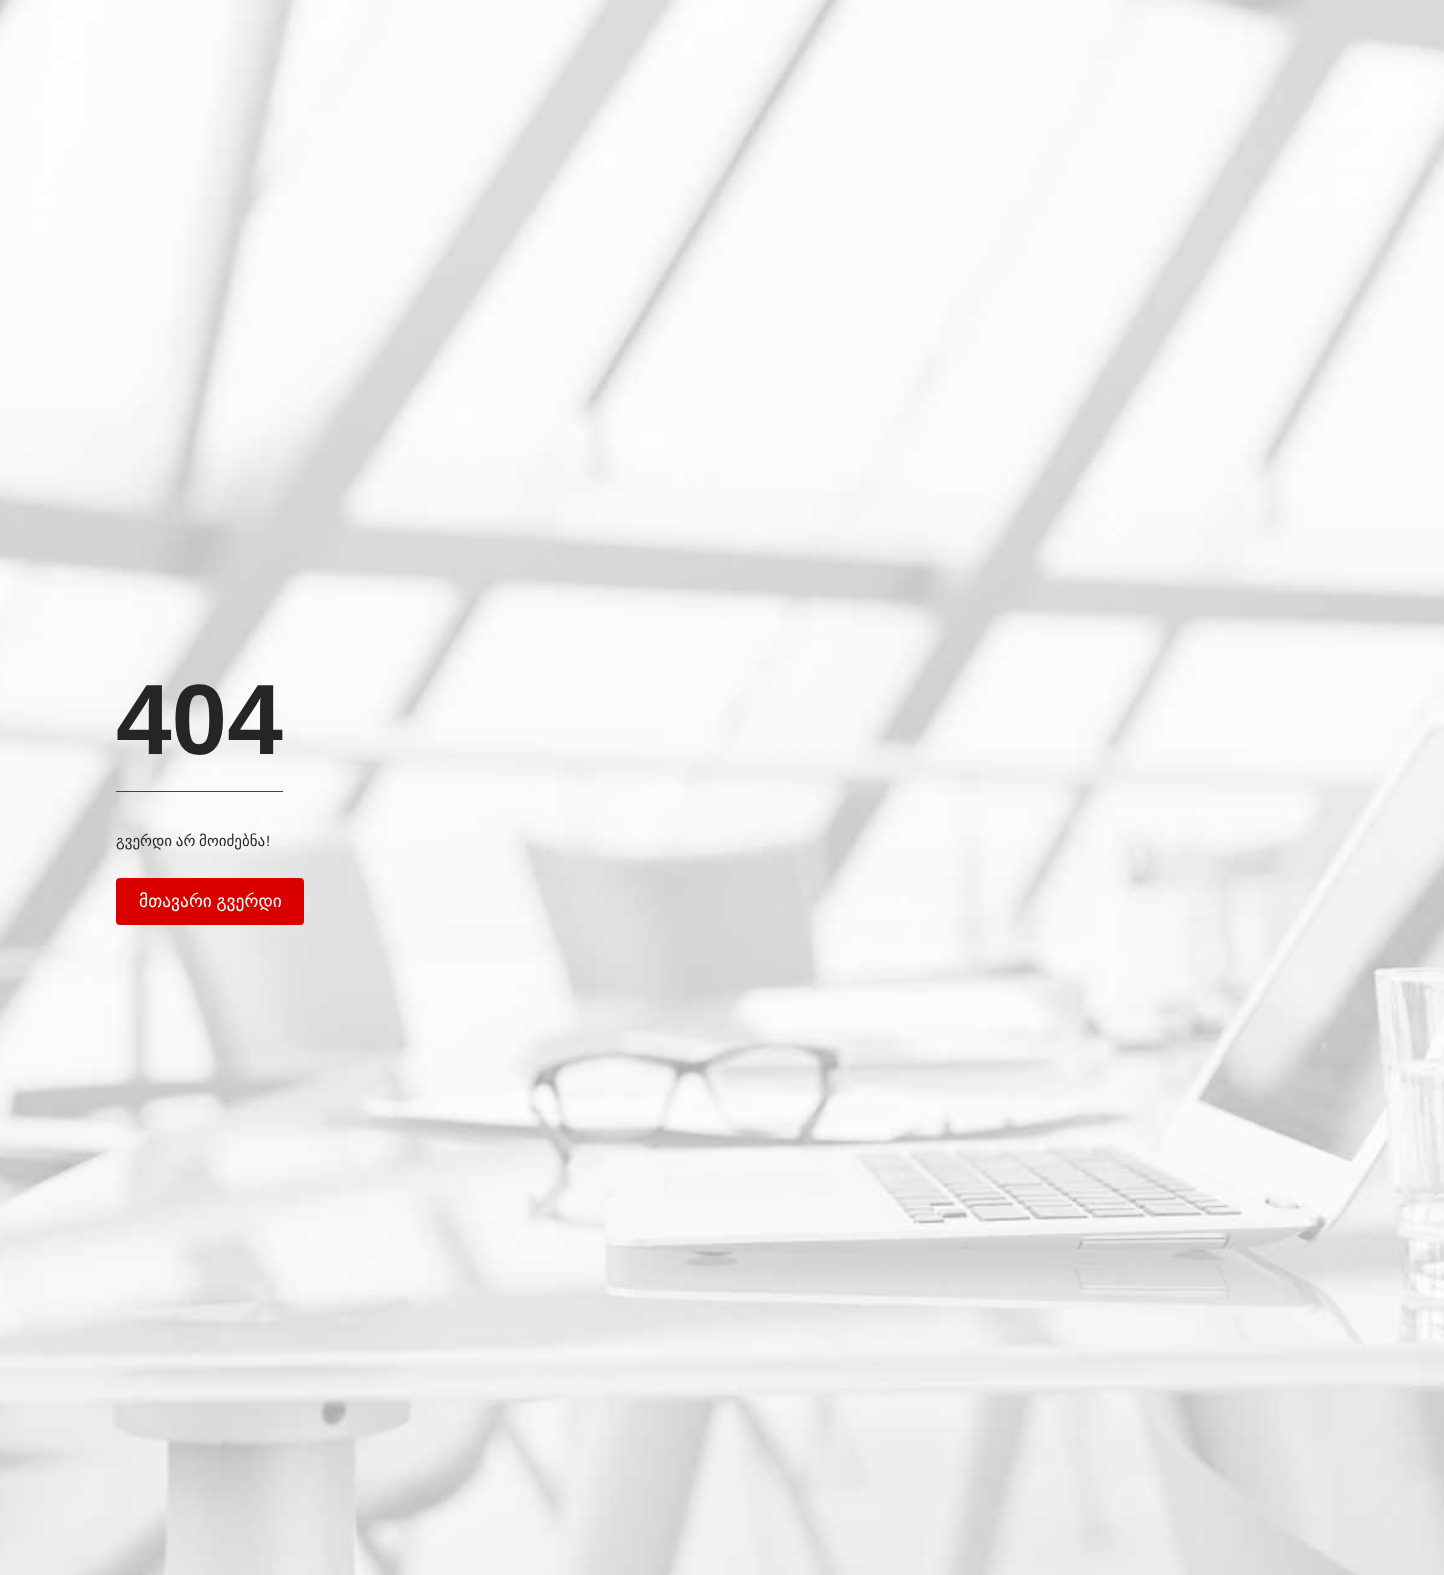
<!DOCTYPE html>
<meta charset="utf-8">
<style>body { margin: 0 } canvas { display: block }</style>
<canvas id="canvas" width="1444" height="1575"></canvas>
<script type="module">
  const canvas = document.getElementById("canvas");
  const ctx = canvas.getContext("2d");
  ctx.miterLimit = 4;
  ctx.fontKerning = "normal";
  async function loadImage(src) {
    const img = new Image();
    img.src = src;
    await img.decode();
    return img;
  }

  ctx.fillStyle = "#ffffff";
  ctx.fillRect(0, 0, 1444, 1575);
  ctx.drawImage(await loadImage("img1.png"), 0, 0, 1444, 1575);
  ctx.fillStyle = "#db0000";
  ctx.fillRect(116, 791, 167, 1);
  ctx.font = "bold 100px Liberation Sans";
  ctx.fillStyle = "#252525";
  ctx.fillText("404", 116, 754);
  ctx.wordSpacing = "-1px";
  ctx.font = "15px DejaVu Sans";
  ctx.fillText("გვერდი არ მოიძებნა", 116, 846);
  ctx.wordSpacing = "0px";
  ctx.font = "15px Liberation Sans";
  ctx.fillText("!", 266, 846);
  ctx.fillStyle = "#db0000";
  ctx.beginPath();
  ctx.roundRect(116, 878, 188, 47, 4);
  ctx.fill();
  ctx.wordSpacing = "-1px";
  ctx.font = "17.5px DejaVu Sans";
  ctx.fillStyle = "#ffffff";
  ctx.fillText("მთავარი გვერდი", 139, 907);
</script>
